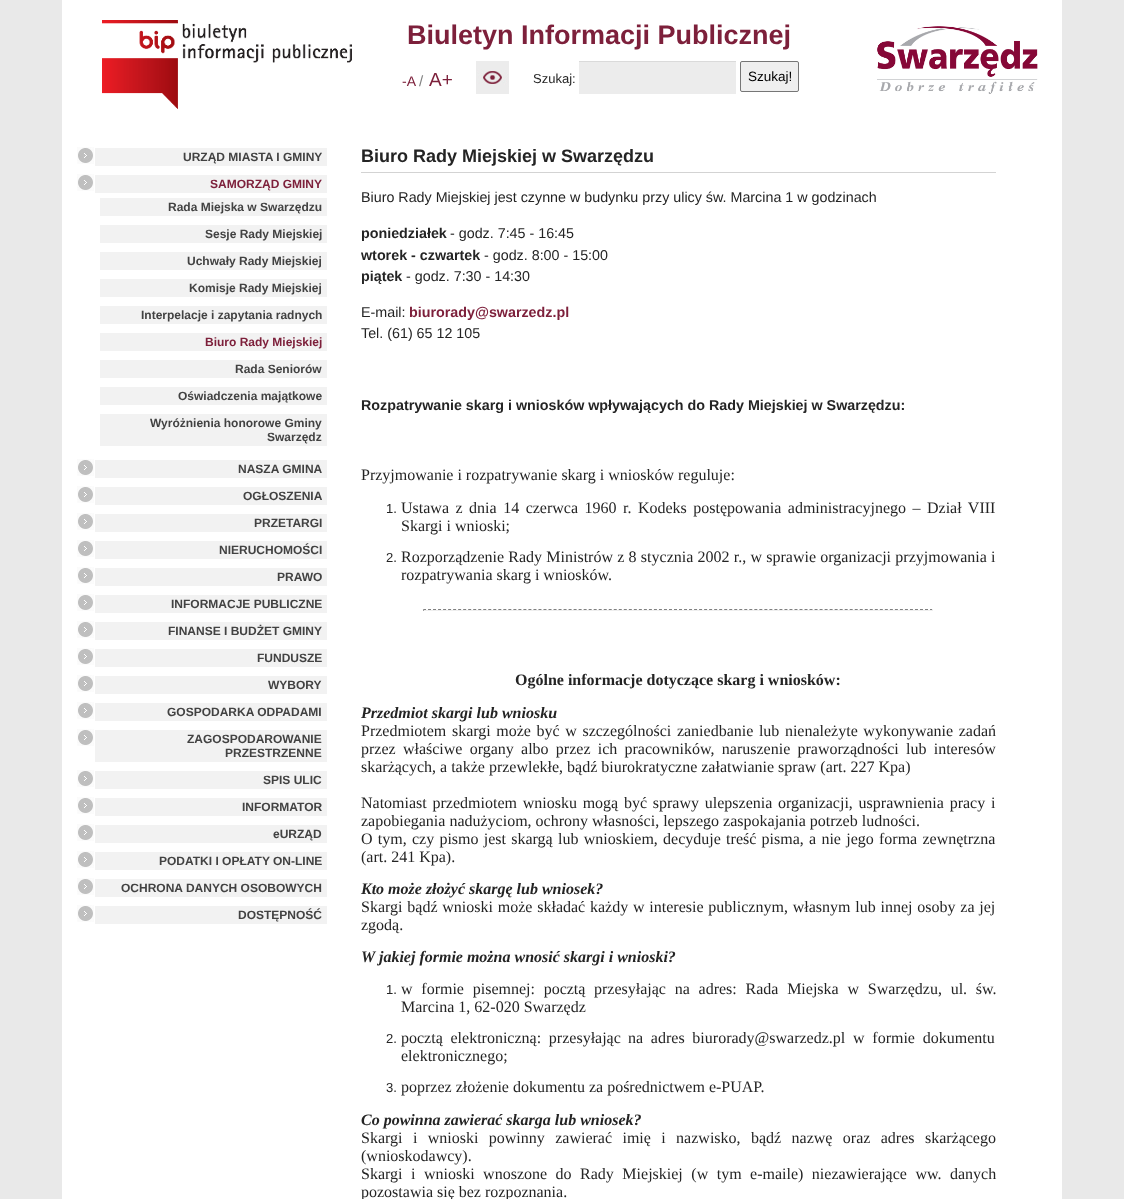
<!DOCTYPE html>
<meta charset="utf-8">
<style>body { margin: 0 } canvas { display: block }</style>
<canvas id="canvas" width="1124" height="1199"></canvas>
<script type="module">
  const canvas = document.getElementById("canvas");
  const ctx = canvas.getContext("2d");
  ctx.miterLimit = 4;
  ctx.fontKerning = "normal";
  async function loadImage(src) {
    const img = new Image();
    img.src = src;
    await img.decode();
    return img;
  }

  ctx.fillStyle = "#e9e9e9";
  ctx.fillRect(0, 0, 1124, 1199);
  ctx.fillStyle = "#ffffff";
  ctx.fillRect(62, 0, 1000, 1199);
  ctx.drawImage(await loadImage("img1.png"), 102, 20, 250, 89);
  ctx.font = "bold 27px Arimo";
  ctx.fillStyle = "#7d203b";
  ctx.fillText("Biuletyn Informacji Publicznej", 407, 44);
  ctx.drawImage(await loadImage("img2.png"), 877, 26, 161, 68);
  ctx.font = "14px Arimo";
  ctx.fillText("-A", 402, 86);
  ctx.font = "15px Arimo";
  ctx.fillStyle = "#808080";
  ctx.fillText("/", 419, 86);
  ctx.font = "19px Arimo";
  ctx.fillStyle = "#7d203b";
  ctx.fillText("A+", 429, 86);
  ctx.drawImage(await loadImage("img3.png"), 476, 61, 33, 33);
  ctx.font = "13px Arimo";
  ctx.fillStyle = "#242424";
  ctx.fillText("Szukaj:", 533, 83);
  ctx.fillStyle = "#ececec";
  ctx.fillRect(579, 62, 157, 32);
  ctx.fillStyle = "#dadada";
  ctx.fillRect(579, 61, 157, 1);
  ctx.fillStyle = "#efefef";
  ctx.beginPath();
  ctx.roundRect(740.5, 61.5, 58, 30, 1.5);
  ctx.fill();
  ctx.strokeStyle = "#767676";
  ctx.stroke();
  ctx.font = "13.5px Liberation Sans";
  ctx.fillStyle = "#000000";
  ctx.fillText("Szukaj!", 748, 81);
  ctx.drawImage(await loadImage("img4.png"), 77, 147, 17, 17);
  ctx.fillStyle = "#f2f2f2";
  ctx.fillRect(95, 148, 232, 18);
  ctx.font = "bold 12px Arimo";
  ctx.fillStyle = "#424242";
  ctx.fillText("URZĄD MIASTA I GMINY", 183, 161);
  ctx.drawImage(await loadImage("img4.png"), 77, 174, 17, 17);
  ctx.fillStyle = "#f2f2f2";
  ctx.fillRect(95, 175, 232, 18);
  ctx.fillStyle = "#7d203b";
  ctx.fillText("SAMORZĄD GMINY", 210, 188);
  ctx.fillStyle = "#f2f2f2";
  ctx.fillRect(100, 198, 227, 18);
  ctx.fillStyle = "#424242";
  ctx.fillText("Rada Miejska w Swarzędzu", 168, 211);
  ctx.fillStyle = "#f2f2f2";
  ctx.fillRect(100, 225, 227, 18);
  ctx.fillStyle = "#424242";
  ctx.fillText("Sesje Rady Miejskiej", 205, 238);
  ctx.fillStyle = "#f2f2f2";
  ctx.fillRect(100, 252, 227, 18);
  ctx.fillStyle = "#424242";
  ctx.fillText("Uchwały Rady Miejskiej", 187, 265);
  ctx.fillStyle = "#f2f2f2";
  ctx.fillRect(100, 279, 227, 18);
  ctx.fillStyle = "#424242";
  ctx.fillText("Komisje Rady Miejskiej", 189, 292);
  ctx.fillStyle = "#f2f2f2";
  ctx.fillRect(100, 306, 227, 18);
  ctx.fillStyle = "#424242";
  ctx.fillText("Interpelacje i zapytania radnych", 141, 319);
  ctx.fillStyle = "#f2f2f2";
  ctx.fillRect(100, 333, 227, 18);
  ctx.fillStyle = "#7d203b";
  ctx.fillText("Biuro Rady Miejskiej", 205, 346);
  ctx.fillStyle = "#f2f2f2";
  ctx.fillRect(100, 360, 227, 18);
  ctx.fillStyle = "#424242";
  ctx.fillText("Rada Seniorów", 235, 373);
  ctx.fillStyle = "#f2f2f2";
  ctx.fillRect(100, 387, 227, 18);
  ctx.fillStyle = "#424242";
  ctx.fillText("Oświadczenia majątkowe", 178, 400);
  ctx.fillStyle = "#f2f2f2";
  ctx.fillRect(100, 414, 227, 32);
  ctx.fillStyle = "#424242";
  ctx.fillText("Wyróżnienia honorowe Gminy", 150, 427);
  ctx.fillText("Swarzędz", 267, 441);
  ctx.drawImage(await loadImage("img4.png"), 77, 459, 17, 17);
  ctx.fillStyle = "#f2f2f2";
  ctx.fillRect(95, 460, 232, 18);
  ctx.fillStyle = "#424242";
  ctx.fillText("NASZA GMINA", 238, 473);
  ctx.drawImage(await loadImage("img4.png"), 77, 486, 17, 17);
  ctx.fillStyle = "#f2f2f2";
  ctx.fillRect(95, 487, 232, 18);
  ctx.fillStyle = "#424242";
  ctx.fillText("OGŁOSZENIA", 243, 500);
  ctx.drawImage(await loadImage("img4.png"), 77, 513, 17, 17);
  ctx.fillStyle = "#f2f2f2";
  ctx.fillRect(95, 514, 232, 18);
  ctx.fillStyle = "#424242";
  ctx.fillText("PRZETARGI", 254, 527);
  ctx.drawImage(await loadImage("img4.png"), 77, 540, 17, 17);
  ctx.fillStyle = "#f2f2f2";
  ctx.fillRect(95, 541, 232, 18);
  ctx.fillStyle = "#424242";
  ctx.fillText("NIERUCHOMOŚCI", 219, 554);
  ctx.drawImage(await loadImage("img4.png"), 77, 567, 17, 17);
  ctx.fillStyle = "#f2f2f2";
  ctx.fillRect(95, 568, 232, 18);
  ctx.fillStyle = "#424242";
  ctx.fillText("PRAWO", 277, 581);
  ctx.drawImage(await loadImage("img4.png"), 77, 594, 17, 17);
  ctx.fillStyle = "#f2f2f2";
  ctx.fillRect(95, 595, 232, 18);
  ctx.fillStyle = "#424242";
  ctx.fillText("INFORMACJE PUBLICZNE", 171, 608);
  ctx.drawImage(await loadImage("img4.png"), 77, 621, 17, 17);
  ctx.fillStyle = "#f2f2f2";
  ctx.fillRect(95, 622, 232, 18);
  ctx.fillStyle = "#424242";
  ctx.fillText("FINANSE I BUDŻET GMINY", 168, 635);
  ctx.drawImage(await loadImage("img4.png"), 77, 648, 17, 17);
  ctx.fillStyle = "#f2f2f2";
  ctx.fillRect(95, 649, 232, 18);
  ctx.fillStyle = "#424242";
  ctx.fillText("FUNDUSZE", 257, 662);
  ctx.drawImage(await loadImage("img4.png"), 77, 675, 17, 17);
  ctx.fillStyle = "#f2f2f2";
  ctx.fillRect(95, 676, 232, 18);
  ctx.fillStyle = "#424242";
  ctx.fillText("WYBORY", 268, 689);
  ctx.drawImage(await loadImage("img4.png"), 77, 702, 17, 17);
  ctx.fillStyle = "#f2f2f2";
  ctx.fillRect(95, 703, 232, 18);
  ctx.fillStyle = "#424242";
  ctx.fillText("GOSPODARKA ODPADAMI", 167, 716);
  ctx.drawImage(await loadImage("img4.png"), 77, 729, 17, 17);
  ctx.fillStyle = "#f2f2f2";
  ctx.fillRect(95, 730, 232, 32);
  ctx.fillStyle = "#424242";
  ctx.fillText("ZAGOSPODAROWANIE", 187, 743);
  ctx.fillText("PRZESTRZENNE", 225, 757);
  ctx.drawImage(await loadImage("img4.png"), 77, 770, 17, 17);
  ctx.fillStyle = "#f2f2f2";
  ctx.fillRect(95, 771, 232, 18);
  ctx.fillStyle = "#424242";
  ctx.fillText("SPIS ULIC", 263, 784);
  ctx.drawImage(await loadImage("img4.png"), 77, 797, 17, 17);
  ctx.fillStyle = "#f2f2f2";
  ctx.fillRect(95, 798, 232, 18);
  ctx.fillStyle = "#424242";
  ctx.fillText("INFORMATOR", 242, 811);
  ctx.drawImage(await loadImage("img4.png"), 77, 824, 17, 17);
  ctx.fillStyle = "#f2f2f2";
  ctx.fillRect(95, 825, 232, 18);
  ctx.fillStyle = "#424242";
  ctx.fillText("eURZĄD", 273, 838);
  ctx.drawImage(await loadImage("img4.png"), 77, 851, 17, 17);
  ctx.fillStyle = "#f2f2f2";
  ctx.fillRect(95, 852, 232, 18);
  ctx.fillStyle = "#424242";
  ctx.fillText("PODATKI I OPŁATY ON-LINE", 159, 865);
  ctx.drawImage(await loadImage("img4.png"), 77, 878, 17, 17);
  ctx.fillStyle = "#f2f2f2";
  ctx.fillRect(95, 879, 232, 18);
  ctx.fillStyle = "#424242";
  ctx.fillText("OCHRONA DANYCH OSOBOWYCH", 121, 892);
  ctx.drawImage(await loadImage("img4.png"), 77, 905, 17, 17);
  ctx.fillStyle = "#f2f2f2";
  ctx.fillRect(95, 906, 232, 18);
  ctx.fillStyle = "#424242";
  ctx.fillText("DOSTĘPNOŚĆ", 238, 919);
  ctx.fillStyle = "#d3d3d3";
  ctx.fillRect(361, 172, 635, 1);
  ctx.font = "bold 18px Arimo";
  ctx.fillStyle = "#242424";
  ctx.fillText("Biuro Rady Miejskiej w Swarzędzu", 361, 162);
  ctx.font = "14.3px Arimo";
  ctx.fillText("Biuro Rady Miejskiej jest czynne w budynku przy ulicy św. Marcina 1 w godzinach", 361, 202);
  ctx.font = "bold 14.3px Arimo";
  ctx.fillText("poniedziałek", 361, 238);
  ctx.font = "14.3px Arimo";
  ctx.fillText("- godz. 7:45 - 16:45", 450, 238);
  ctx.font = "bold 14.3px Arimo";
  ctx.fillText("wtorek - czwartek", 361, 260);
  ctx.font = "14.3px Arimo";
  ctx.fillText("- godz. 8:00 - 15:00", 484, 260);
  ctx.font = "bold 14.3px Arimo";
  ctx.fillText("piątek", 361, 281);
  ctx.font = "14.3px Arimo";
  ctx.fillText("- godz. 7:30 - 14:30", 406, 281);
  ctx.fillText("E-mail:", 361, 317);
  ctx.font = "bold 14.3px Arimo";
  ctx.fillStyle = "#7d203b";
  ctx.fillText("biurorady@swarzedz.pl", 409, 317);
  ctx.font = "14.3px Arimo";
  ctx.fillStyle = "#242424";
  ctx.fillText("Tel. (61) 65 12 105", 361, 338);
  ctx.font = "bold 14.3px Arimo";
  ctx.fillText("Rozpatrywanie skarg i wniosków wpływających do Rady Miejskiej w Swarzędzu:", 361, 410);
  ctx.font = "16px Liberation Serif";
  ctx.fillText("Przyjmowanie i rozpatrywanie skarg i wniosków reguluje:", 361, 480);
  ctx.font = "13px Arimo";
  ctx.fillText("1.", 386, 513);
  ctx.wordSpacing = "2.5px";
  ctx.font = "16px Liberation Serif";
  ctx.fillText("Ustawa z dnia 14 czerwca 1960", 401, 513);
  ctx.fillText("r. Kodeks postępowania administracyjnego – Dział VIII", 623, 513);
  ctx.wordSpacing = "0px";
  ctx.fillText("Skargi i wnioski;", 401, 531);
  ctx.font = "13px Arimo";
  ctx.fillText("2.", 386, 562);
  ctx.wordSpacing = "0.25px";
  ctx.font = "16px Liberation Serif";
  ctx.fillText("Rozporządzenie Rady Ministrów z 8 stycznia 2002 r., w sprawie organizacji przyjmowania i", 401, 562);
  ctx.wordSpacing = "0px";
  ctx.fillText("rozpatrywania skarg i wniosków.", 401, 580);
  ctx.beginPath();
  ctx.moveTo(423, 609.5);
  ctx.lineTo(933, 609.5);
  ctx.strokeStyle = "#808080";
  ctx.setLineDash([3, 2.02]);
  ctx.stroke();
  ctx.fillStyle = "#eeeeee";
  ctx.fillRect(932, 609, 1, 2);
  ctx.fillRect(423, 610, 510, 1);
  ctx.fillStyle = "#9f9f9f";
  ctx.fillRect(423, 609, 1, 2);
  ctx.font = "bold 16px Liberation Serif";
  ctx.fillStyle = "#242424";
  ctx.fillText("Ogólne informacje dotyczące skarg i wniosków:", 515, 685);
  ctx.font = "italic bold 16px Liberation Serif";
  ctx.fillText("Przedmiot skargi lub wniosku", 361, 718);
  ctx.wordSpacing = "1.6px";
  ctx.font = "16px Liberation Serif";
  ctx.fillText("Przedmiotem skargi może być w szczególności zaniedbanie lub nienależyte wykonywanie zadań", 361, 736);
  ctx.wordSpacing = "3.25px";
  ctx.fillText("przez właściwe organy albo przez ich pracowników, naruszenie praworządności lub interesów", 361, 754);
  ctx.wordSpacing = "0px";
  ctx.fillText("skarżących, a także przewlekłe, bądź biurokratyczne załatwianie spraw (art. 227 Kpa)", 361, 772);
  ctx.wordSpacing = "1.75px";
  ctx.fillText("Natomiast przedmiotem wniosku mogą być sprawy ulepszenia organizacji, usprawnienia pracy i", 361, 808);
  ctx.wordSpacing = "0px";
  ctx.fillText("zapobiegania nadużyciom, ochrony własności, lepszego zaspokajania potrzeb ludności.", 361, 826);
  ctx.wordSpacing = "1.25px";
  ctx.fillText("O tym, czy pismo jest skargą lub wnioskiem, decyduje treść pisma, a nie jego forma zewnętrzna", 361, 844);
  ctx.wordSpacing = "0px";
  ctx.fillText("(art. 241 Kpa).", 361, 862);
  ctx.font = "italic bold 16px Liberation Serif";
  ctx.fillText("Kto może złożyć skargę lub wniosek?", 361, 894);
  ctx.wordSpacing = "0.8px";
  ctx.font = "16px Liberation Serif";
  ctx.fillText("Skargi bądź wnioski może składać każdy w interesie publicznym, własnym lub innej osoby za jej", 361, 912);
  ctx.wordSpacing = "0px";
  ctx.fillText("zgodą.", 361, 930);
  ctx.font = "italic bold 16px Liberation Serif";
  ctx.fillText("W jakiej formie można wnosić skargi i wnioski?", 361, 962);
  ctx.font = "13px Arimo";
  ctx.fillText("1.", 386, 994);
  ctx.wordSpacing = "4.75px";
  ctx.font = "16px Liberation Serif";
  ctx.fillText("w formie pisemnej: pocztą", 401, 994);
  ctx.fillText("przesyłając na adres: Rada Miejska w Swarzędzu, ul. św.", 594, 994);
  ctx.wordSpacing = "0px";
  ctx.fillText("Marcina 1, 62-020 Swarzędz", 401, 1012);
  ctx.font = "13px Arimo";
  ctx.fillText("2.", 386, 1043);
  ctx.wordSpacing = "3.75px";
  ctx.font = "16px Liberation Serif";
  ctx.fillText("pocztą elektroniczną: przesyłając", 401, 1043);
  ctx.fillText("na adres biurorady@swarzedz.pl w formie dokumentu", 628, 1043);
  ctx.wordSpacing = "0px";
  ctx.fillText("elektronicznego;", 401, 1061);
  ctx.font = "13px Arimo";
  ctx.fillText("3.", 386, 1092);
  ctx.font = "16px Liberation Serif";
  ctx.fillText("poprzez złożenie dokumentu za pośrednictwem e-PUAP.", 401, 1092);
  ctx.font = "italic bold 16px Liberation Serif";
  ctx.fillText("Co powinna zawierać skarga lub wniosek?", 361, 1125);
  ctx.wordSpacing = "6.4px";
  ctx.font = "16px Liberation Serif";
  ctx.fillText("Skargi i wnioski powinny zawierać imię i nazwisko, bądź nazwę oraz adres skarżącego", 361, 1143);
  ctx.wordSpacing = "0px";
  ctx.fillText("(wnioskodawcy).", 361, 1161);
  ctx.wordSpacing = "4.5px";
  ctx.fillText("Skargi i wnioski wnoszone do Rady Miejskiej (w tym e-maile) niezawierające ww. danych", 361, 1179);
  ctx.wordSpacing = "0px";
  ctx.fillText("pozostawia się bez rozpoznania.", 361, 1197);
</script>
